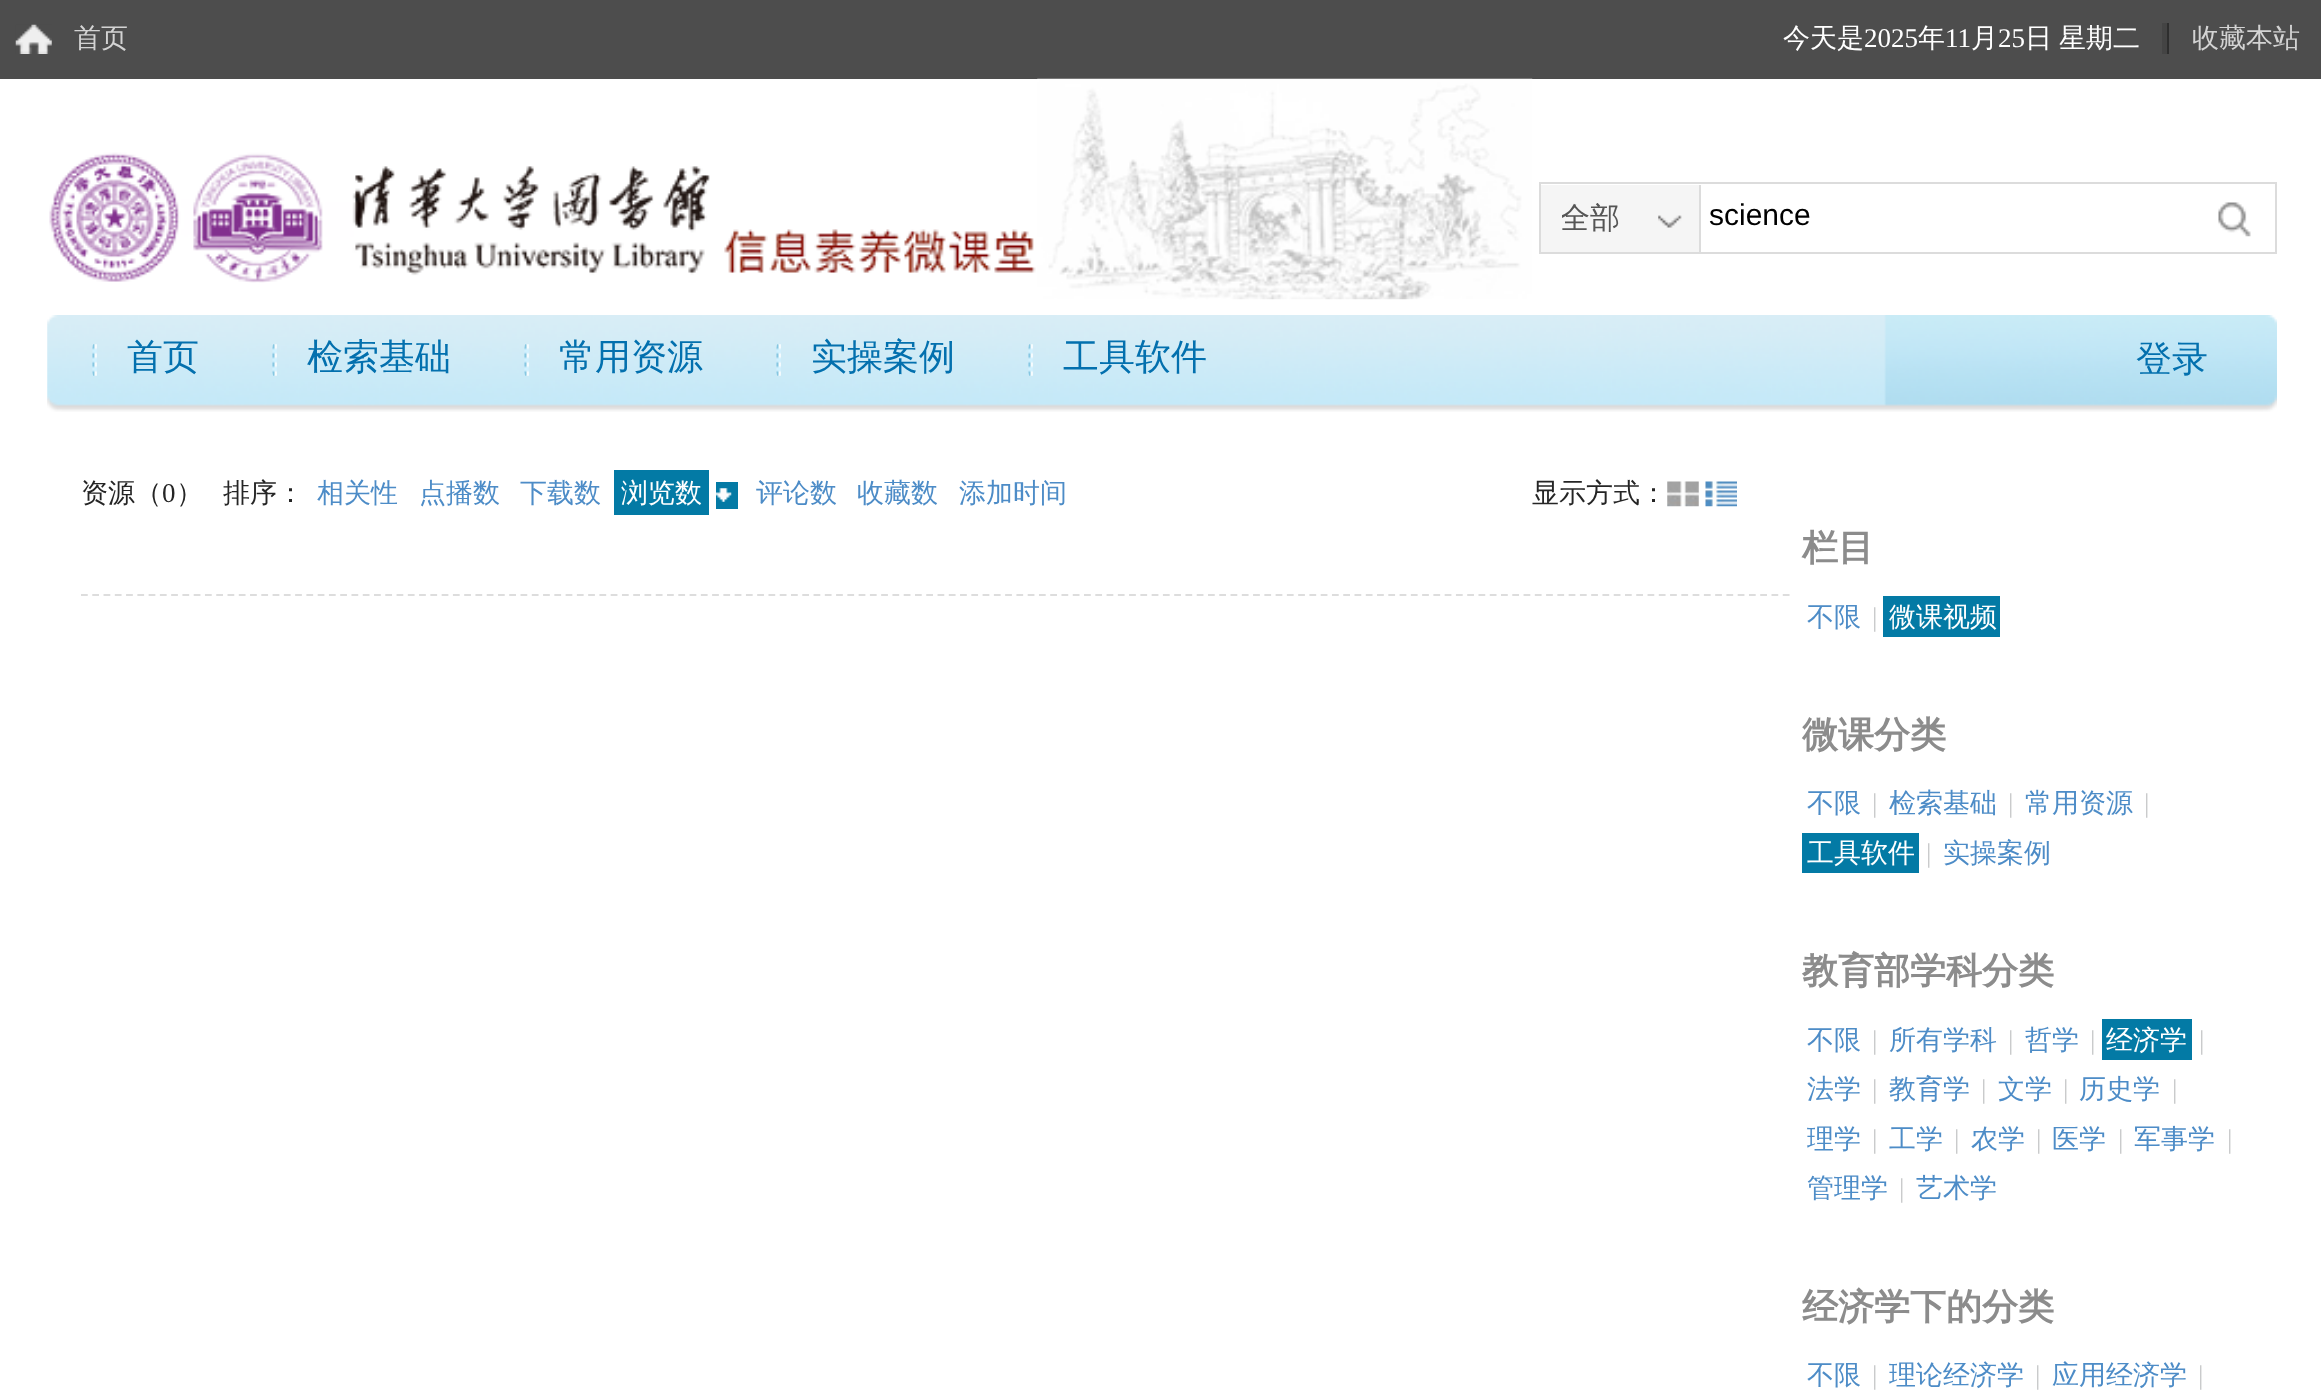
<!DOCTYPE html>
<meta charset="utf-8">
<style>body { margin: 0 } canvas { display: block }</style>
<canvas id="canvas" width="2321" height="1397"></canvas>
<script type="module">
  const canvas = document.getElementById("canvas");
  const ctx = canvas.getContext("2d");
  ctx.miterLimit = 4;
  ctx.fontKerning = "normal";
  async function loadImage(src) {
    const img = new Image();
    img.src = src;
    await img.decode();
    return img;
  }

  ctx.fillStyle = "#ffffff";
  ctx.fillRect(0, 0, 2321, 1397);
  ctx.fillStyle = "#4d4d4d";
  ctx.fillRect(0, 0, 2321, 79);
  ctx.drawImage(await loadImage("img1.png"), 15, 24, 37, 30);
  ctx.font = "500 27px WenQuanYi Zen Hei";
  ctx.fillStyle = "#d3d3d3";
  ctx.fillText("首页", 74, 47);
  ctx.fillStyle = "#ffffff";
  ctx.fillText("今天是", 1783, 47);
  ctx.font = "27px Liberation Serif";
  ctx.fillText("2025", 1864, 47);
  ctx.font = "500 27px WenQuanYi Zen Hei";
  ctx.fillText("年", 1918, 47);
  ctx.font = "27px Liberation Serif";
  ctx.fillText("11", 1945, 47);
  ctx.font = "500 27px WenQuanYi Zen Hei";
  ctx.fillText("月", 1971, 47);
  ctx.font = "27px Liberation Serif";
  ctx.fillText("25", 1998, 47);
  ctx.font = "500 27px WenQuanYi Zen Hei";
  ctx.fillText("日", 2025, 47);
  ctx.fillText("星期二", 2059, 47);
  ctx.fillStyle = "#444444";
  ctx.fillRect(2162, 23, 5, 31);
  ctx.fillStyle = "#d3d3d3";
  ctx.fillText("收藏本站", 2192, 47);
  ctx.fillStyle = "#2e2e2e";
  ctx.fillRect(2167, 23, 2, 31);
  ctx.drawImage(await loadImage("img2.png"), 49, 152, 987, 131);
  ctx.drawImage(await loadImage("img3.png"), 1037, 78, 496, 222);
  ctx.strokeStyle = "#dcdcdc";
  ctx.lineWidth = 2;
  ctx.strokeRect(1540, 183, 736, 70);
  ctx.fillStyle = "#f5f5f5";
  ctx.fillRect(1541, 185, 158, 67);
  ctx.drawImage(await loadImage("img4.png"), 1658, 215, 24, 13);
  ctx.fillStyle = "#dcdcdc";
  ctx.fillRect(1699, 185, 2, 67);
  ctx.save();
  ctx.beginPath();
  ctx.rect(1562, 203, 137, 33);
  ctx.clip();
  ctx.font = "500 30px WenQuanYi Zen Hei";
  ctx.fillStyle = "#555555";
  ctx.fillText("全部", 1560, 228);
  ctx.restore();
  ctx.font = "30px Liberation Sans";
  ctx.fillStyle = "#000000";
  ctx.fillText("science", 1709, 225);
  ctx.drawImage(await loadImage("img5.png"), 2218, 202, 33, 35);
  ctx.drawImage(await loadImage("img6.png"), 47, 315, 2230, 97);
  ctx.drawImage(await loadImage("img7.png"), 92, 344, 5, 32);
  ctx.font = "500 36px WenQuanYi Zen Hei";
  ctx.fillStyle = "#0370ae";
  ctx.fillText("首页", 127, 369);
  ctx.drawImage(await loadImage("img8.png"), 272, 344, 5, 32);
  ctx.fillText("检索基础", 307, 369);
  ctx.drawImage(await loadImage("img9.png"), 524, 344, 5, 32);
  ctx.fillText("常用资源", 559, 369);
  ctx.drawImage(await loadImage("img10.png"), 776, 344, 5, 32);
  ctx.fillText("实操案例", 811, 369);
  ctx.drawImage(await loadImage("img11.png"), 1028, 344, 5, 32);
  ctx.fillText("工具软件", 1063, 369);
  ctx.fillText("登录", 2136, 371);
  ctx.font = "500 27px WenQuanYi Zen Hei";
  ctx.fillStyle = "#252525";
  ctx.fillText("资源（", 81, 502);
  ctx.font = "27px Liberation Serif";
  ctx.fillText("0", 162, 502);
  ctx.font = "500 27px WenQuanYi Zen Hei";
  ctx.fillText("）", 176, 502);
  ctx.fillText("排序：", 223, 502);
  ctx.fillStyle = "#4d8cc7";
  ctx.fillText("相关性", 317, 502);
  ctx.fillText("点播数", 419, 502);
  ctx.fillText("下载数", 520, 502);
  ctx.fillStyle = "#037aa5";
  ctx.fillRect(614, 470, 95, 45);
  ctx.fillRect(716, 482, 22, 27);
  ctx.fillStyle = "#ffffff";
  ctx.fillText("浏览数", 621, 502);
  ctx.drawImage(await loadImage("img12.png"), 716, 488, 16, 14);
  ctx.fillStyle = "#4d8cc7";
  ctx.fillText("评论数", 756, 502);
  ctx.fillText("收藏数", 857, 502);
  ctx.fillText("添加时间", 959, 502);
  ctx.fillStyle = "#252525";
  ctx.fillText("显示方式：", 1532, 502);
  ctx.drawImage(await loadImage("img13.png"), 1667, 481, 32, 26);
  ctx.drawImage(await loadImage("img14.png"), 1705, 481, 32, 26);
  ctx.beginPath();
  ctx.moveTo(81, 595);
  ctx.lineTo(1791, 595);
  ctx.strokeStyle = "#dddddd";
  ctx.lineWidth = 2.2;
  ctx.setLineDash([6.75, 4.52]);
  ctx.stroke();
  ctx.font = "bold 36px WenQuanYi Zen Hei";
  ctx.fillStyle = "#8c8c8c";
  ctx.fillText("栏目", 1802, 560);
  ctx.font = "500 27px WenQuanYi Zen Hei";
  ctx.fillStyle = "#4d8cc7";
  ctx.fillText("不限", 1807, 626);
  ctx.font = "27px Liberation Serif";
  ctx.fillStyle = "#c9cacb";
  ctx.fillText("|", 1872, 626);
  ctx.fillStyle = "#037aa5";
  ctx.fillRect(1883, 596, 117, 41);
  ctx.font = "500 27px WenQuanYi Zen Hei";
  ctx.fillStyle = "#ffffff";
  ctx.fillText("微课视频", 1889, 626);
  ctx.font = "bold 36px WenQuanYi Zen Hei";
  ctx.fillStyle = "#8c8c8c";
  ctx.fillText("微课分类", 1802, 747);
  ctx.font = "500 27px WenQuanYi Zen Hei";
  ctx.fillStyle = "#4d8cc7";
  ctx.fillText("不限", 1807, 812);
  ctx.font = "27px Liberation Serif";
  ctx.fillStyle = "#c9cacb";
  ctx.fillText("|", 1872, 812);
  ctx.font = "500 27px WenQuanYi Zen Hei";
  ctx.fillStyle = "#4d8cc7";
  ctx.fillText("检索基础", 1889, 812);
  ctx.font = "27px Liberation Serif";
  ctx.fillStyle = "#c9cacb";
  ctx.fillText("|", 2008, 812);
  ctx.font = "500 27px WenQuanYi Zen Hei";
  ctx.fillStyle = "#4d8cc7";
  ctx.fillText("常用资源", 2025, 812);
  ctx.font = "27px Liberation Serif";
  ctx.fillStyle = "#c9cacb";
  ctx.fillText("|", 2144, 812);
  ctx.fillStyle = "#037aa5";
  ctx.fillRect(1802, 833, 117, 40);
  ctx.font = "500 27px WenQuanYi Zen Hei";
  ctx.fillStyle = "#ffffff";
  ctx.fillText("工具软件", 1807, 862);
  ctx.font = "27px Liberation Serif";
  ctx.fillStyle = "#c9cacb";
  ctx.fillText("|", 1926, 862);
  ctx.font = "500 27px WenQuanYi Zen Hei";
  ctx.fillStyle = "#4d8cc7";
  ctx.fillText("实操案例", 1943, 862);
  ctx.font = "bold 36px WenQuanYi Zen Hei";
  ctx.fillStyle = "#8c8c8c";
  ctx.fillText("教育部学科分类", 1802, 983);
  ctx.font = "500 27px WenQuanYi Zen Hei";
  ctx.fillStyle = "#4d8cc7";
  ctx.fillText("不限", 1807, 1049);
  ctx.font = "27px Liberation Serif";
  ctx.fillStyle = "#c9cacb";
  ctx.fillText("|", 1872, 1049);
  ctx.font = "500 27px WenQuanYi Zen Hei";
  ctx.fillStyle = "#4d8cc7";
  ctx.fillText("所有学科", 1889, 1049);
  ctx.font = "27px Liberation Serif";
  ctx.fillStyle = "#c9cacb";
  ctx.fillText("|", 2008, 1049);
  ctx.font = "500 27px WenQuanYi Zen Hei";
  ctx.fillStyle = "#4d8cc7";
  ctx.fillText("哲学", 2025, 1049);
  ctx.font = "27px Liberation Serif";
  ctx.fillStyle = "#c9cacb";
  ctx.fillText("|", 2090, 1049);
  ctx.fillStyle = "#037aa5";
  ctx.fillRect(2102, 1019, 90, 41);
  ctx.font = "500 27px WenQuanYi Zen Hei";
  ctx.fillStyle = "#ffffff";
  ctx.fillText("经济学", 2106, 1049);
  ctx.font = "27px Liberation Serif";
  ctx.fillStyle = "#c9cacb";
  ctx.fillText("|", 2199, 1049);
  ctx.font = "500 27px WenQuanYi Zen Hei";
  ctx.fillStyle = "#4d8cc7";
  ctx.fillText("法学", 1807, 1098);
  ctx.font = "27px Liberation Serif";
  ctx.fillStyle = "#c9cacb";
  ctx.fillText("|", 1872, 1098);
  ctx.font = "500 27px WenQuanYi Zen Hei";
  ctx.fillStyle = "#4d8cc7";
  ctx.fillText("教育学", 1889, 1098);
  ctx.font = "27px Liberation Serif";
  ctx.fillStyle = "#c9cacb";
  ctx.fillText("|", 1981, 1098);
  ctx.font = "500 27px WenQuanYi Zen Hei";
  ctx.fillStyle = "#4d8cc7";
  ctx.fillText("文学", 1998, 1098);
  ctx.font = "27px Liberation Serif";
  ctx.fillStyle = "#c9cacb";
  ctx.fillText("|", 2063, 1098);
  ctx.font = "500 27px WenQuanYi Zen Hei";
  ctx.fillStyle = "#4d8cc7";
  ctx.fillText("历史学", 2079, 1098);
  ctx.font = "27px Liberation Serif";
  ctx.fillStyle = "#c9cacb";
  ctx.fillText("|", 2172, 1098);
  ctx.font = "500 27px WenQuanYi Zen Hei";
  ctx.fillStyle = "#4d8cc7";
  ctx.fillText("理学", 1807, 1148);
  ctx.font = "27px Liberation Serif";
  ctx.fillStyle = "#c9cacb";
  ctx.fillText("|", 1872, 1148);
  ctx.font = "500 27px WenQuanYi Zen Hei";
  ctx.fillStyle = "#4d8cc7";
  ctx.fillText("工学", 1889, 1148);
  ctx.font = "27px Liberation Serif";
  ctx.fillStyle = "#c9cacb";
  ctx.fillText("|", 1954, 1148);
  ctx.font = "500 27px WenQuanYi Zen Hei";
  ctx.fillStyle = "#4d8cc7";
  ctx.fillText("农学", 1971, 1148);
  ctx.font = "27px Liberation Serif";
  ctx.fillStyle = "#c9cacb";
  ctx.fillText("|", 2036, 1148);
  ctx.font = "500 27px WenQuanYi Zen Hei";
  ctx.fillStyle = "#4d8cc7";
  ctx.fillText("医学", 2052, 1148);
  ctx.font = "27px Liberation Serif";
  ctx.fillStyle = "#c9cacb";
  ctx.fillText("|", 2118, 1148);
  ctx.font = "500 27px WenQuanYi Zen Hei";
  ctx.fillStyle = "#4d8cc7";
  ctx.fillText("军事学", 2134, 1148);
  ctx.font = "27px Liberation Serif";
  ctx.fillStyle = "#c9cacb";
  ctx.fillText("|", 2227, 1148);
  ctx.font = "500 27px WenQuanYi Zen Hei";
  ctx.fillStyle = "#4d8cc7";
  ctx.fillText("管理学", 1807, 1197);
  ctx.font = "27px Liberation Serif";
  ctx.fillStyle = "#c9cacb";
  ctx.fillText("|", 1899, 1197);
  ctx.font = "500 27px WenQuanYi Zen Hei";
  ctx.fillStyle = "#4d8cc7";
  ctx.fillText("艺术学", 1916, 1197);
  ctx.font = "bold 36px WenQuanYi Zen Hei";
  ctx.fillStyle = "#8c8c8c";
  ctx.fillText("经济学下的分类", 1802, 1319);
  ctx.font = "500 27px WenQuanYi Zen Hei";
  ctx.fillStyle = "#4d8cc7";
  ctx.fillText("不限", 1807, 1384);
  ctx.font = "27px Liberation Serif";
  ctx.fillStyle = "#c9cacb";
  ctx.fillText("|", 1872, 1384);
  ctx.font = "500 27px WenQuanYi Zen Hei";
  ctx.fillStyle = "#4d8cc7";
  ctx.fillText("理论经济学", 1889, 1384);
  ctx.font = "27px Liberation Serif";
  ctx.fillStyle = "#c9cacb";
  ctx.fillText("|", 2035, 1384);
  ctx.font = "500 27px WenQuanYi Zen Hei";
  ctx.fillStyle = "#4d8cc7";
  ctx.fillText("应用经济学", 2052, 1384);
  ctx.font = "27px Liberation Serif";
  ctx.fillStyle = "#c9cacb";
  ctx.fillText("|", 2198, 1384);
</script>
